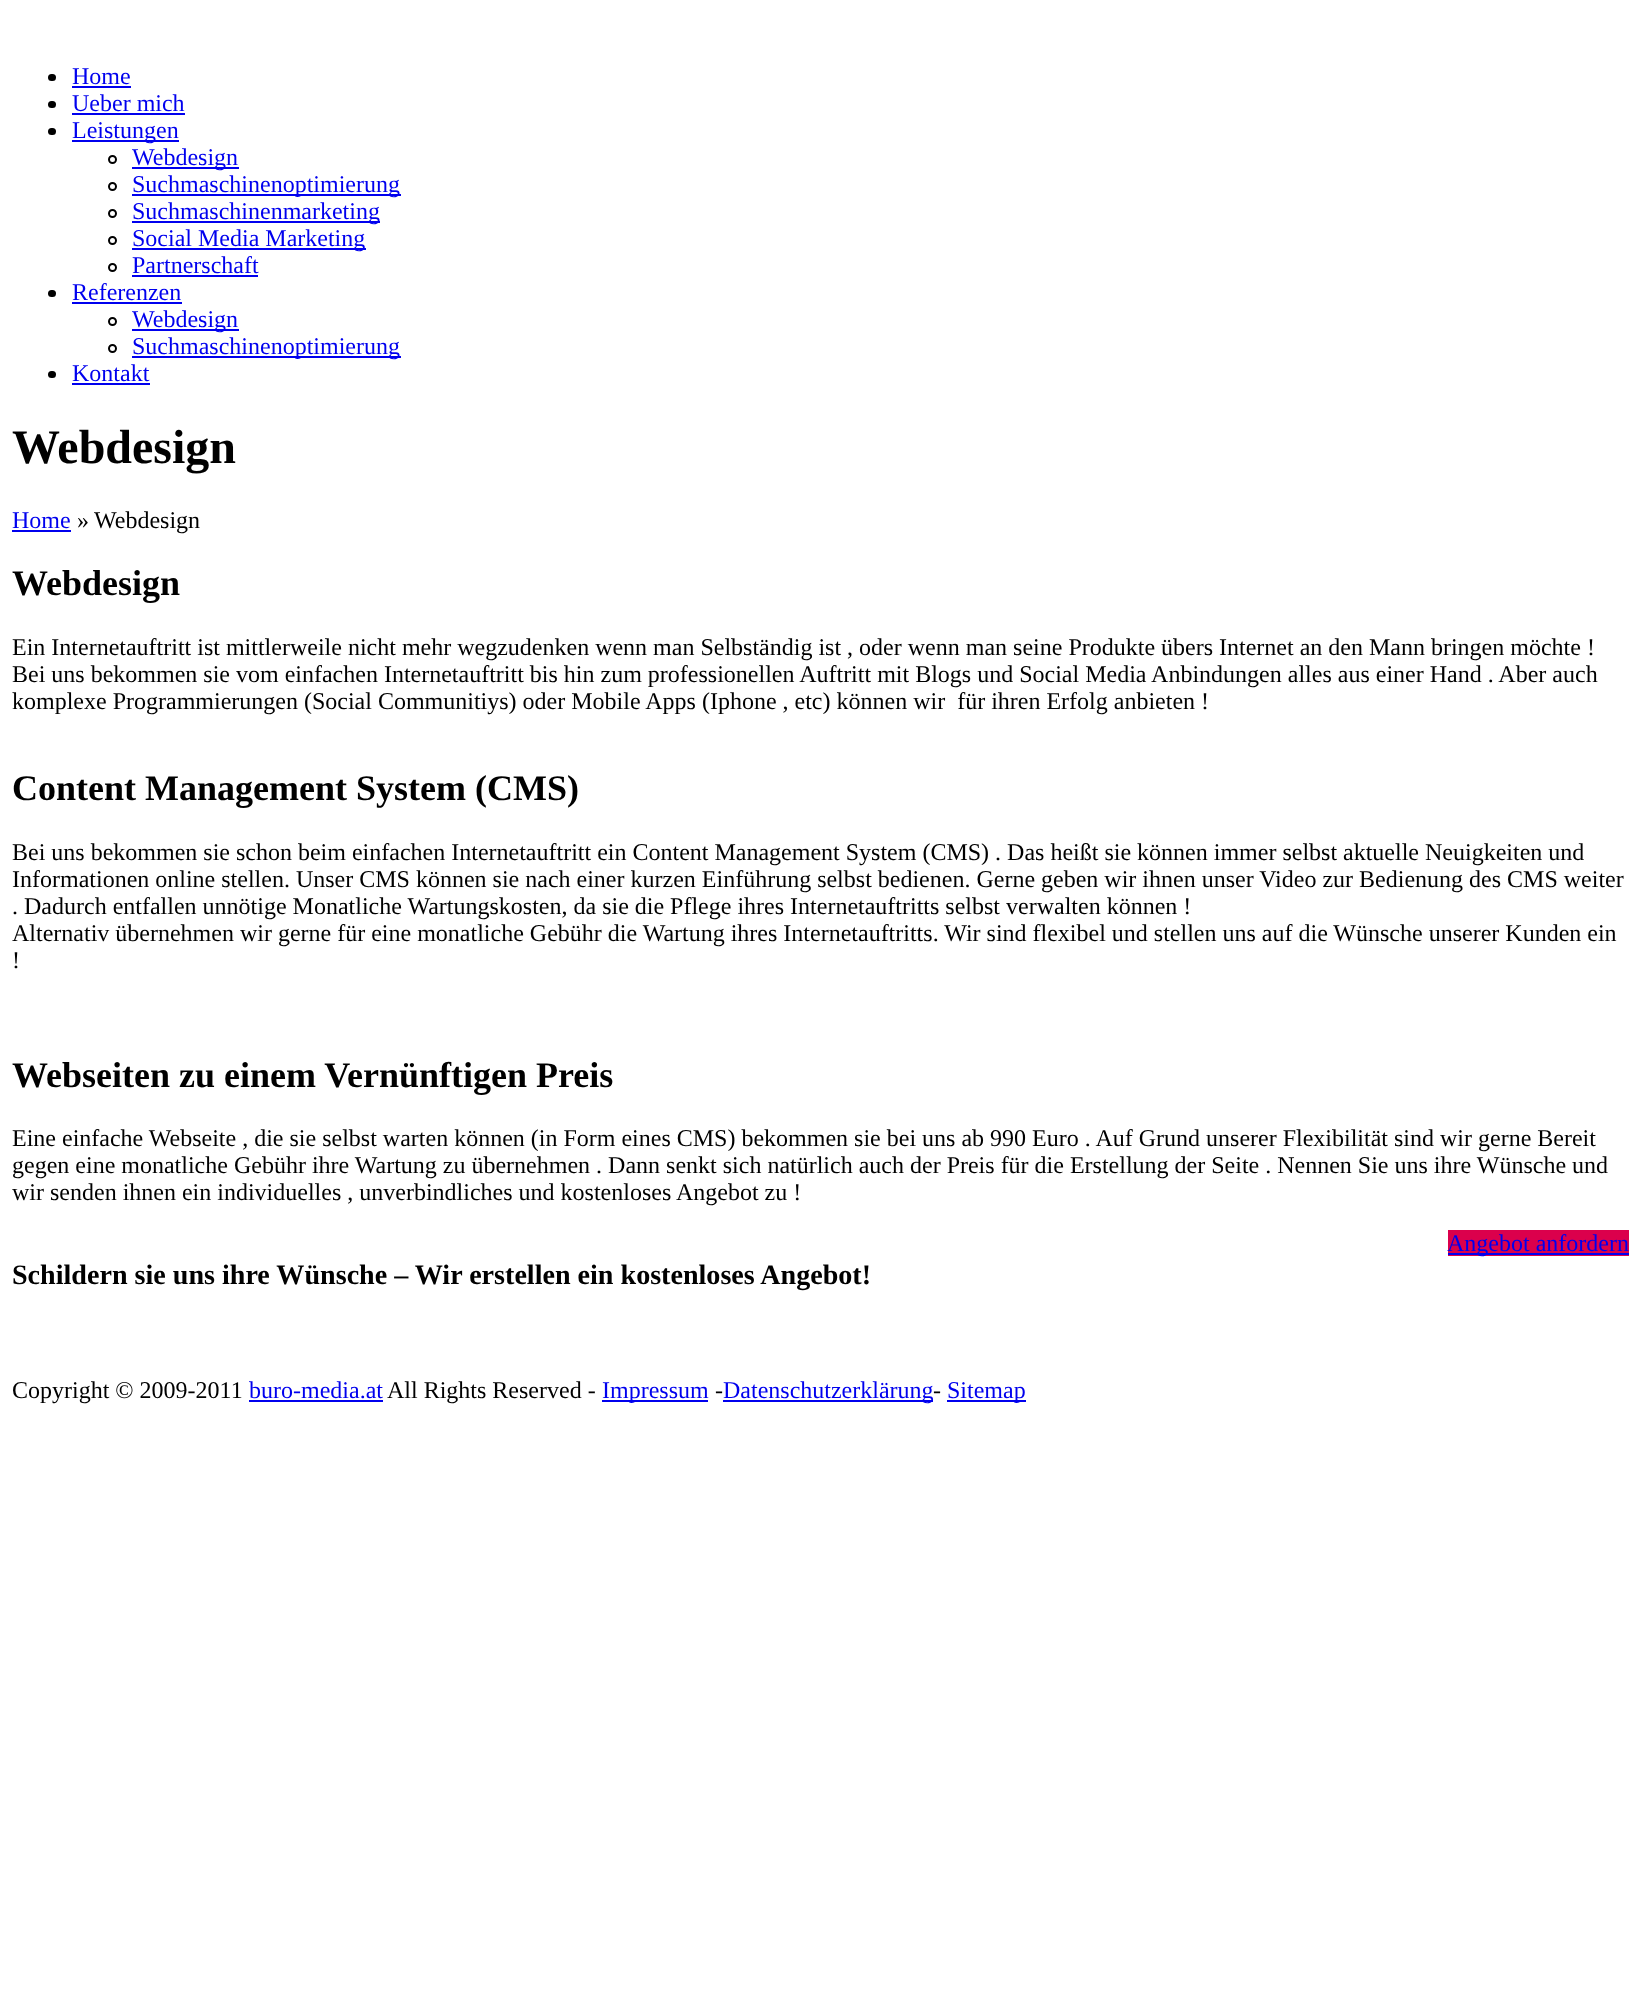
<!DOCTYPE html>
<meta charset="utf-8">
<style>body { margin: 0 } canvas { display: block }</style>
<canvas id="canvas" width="1640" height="2001"></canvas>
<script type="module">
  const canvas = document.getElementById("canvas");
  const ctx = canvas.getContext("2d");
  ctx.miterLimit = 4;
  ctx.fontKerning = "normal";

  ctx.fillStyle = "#ffffff";
  ctx.fillRect(0, 0, 1640, 2001);
  ctx.fillStyle = "#000000";
  ctx.beginPath();
  ctx.roundRect(48, 74, 8, 7, 3.5);
  ctx.fill();
  ctx.font = "24px Liberation Serif";
  ctx.fillStyle = "#0000ee";
  ctx.fillText("Home", 72, 84);
  ctx.fillRect(72, 86, 59, 2);
  ctx.fillStyle = "#000000";
  ctx.beginPath();
  ctx.roundRect(48, 101, 8, 7, 3.5);
  ctx.fill();
  ctx.fillStyle = "#0000ee";
  ctx.fillText("Ueber mich", 72, 111);
  ctx.fillRect(72, 113, 113, 2);
  ctx.fillStyle = "#000000";
  ctx.beginPath();
  ctx.roundRect(48, 128, 8, 7, 3.5);
  ctx.fill();
  ctx.fillStyle = "#0000ee";
  ctx.fillRect(72, 140, 107, 2);
  ctx.fillText("Leistungen", 72, 138);
  ctx.beginPath();
  ctx.arc(112.5, 159.5, 3.5, 0, Math.PI * 2);
  ctx.strokeStyle = "#000000";
  ctx.lineWidth = 2;
  ctx.stroke();
  ctx.fillRect(132, 167, 107, 2);
  ctx.fillText("Webdesign", 132, 165);
  ctx.beginPath();
  ctx.arc(112.5, 186.5, 3.5, 0, Math.PI * 2);
  ctx.stroke();
  ctx.fillRect(132, 194, 269, 2);
  ctx.fillText("Suchmaschinenoptimierung", 132, 192);
  ctx.beginPath();
  ctx.arc(112.5, 213.5, 3.5, 0, Math.PI * 2);
  ctx.stroke();
  ctx.fillRect(132, 221, 248, 2);
  ctx.fillText("Suchmaschinenmarketing", 132, 219);
  ctx.beginPath();
  ctx.arc(112.5, 240.5, 3.5, 0, Math.PI * 2);
  ctx.stroke();
  ctx.fillRect(132, 248, 234, 2);
  ctx.fillText("Social Media Marketing", 132, 246);
  ctx.beginPath();
  ctx.arc(112.5, 267.5, 3.5, 0, Math.PI * 2);
  ctx.stroke();
  ctx.fillText("Partnerschaft", 132, 273);
  ctx.fillRect(132, 275, 126, 2);
  ctx.fillStyle = "#000000";
  ctx.beginPath();
  ctx.roundRect(48, 290, 8, 7, 3.5);
  ctx.fill();
  ctx.fillStyle = "#0000ee";
  ctx.fillText("Referenzen", 72, 300);
  ctx.fillRect(72, 302, 110, 2);
  ctx.beginPath();
  ctx.arc(112.5, 321.5, 3.5, 0, Math.PI * 2);
  ctx.stroke();
  ctx.fillRect(132, 329, 107, 2);
  ctx.fillText("Webdesign", 132, 327);
  ctx.beginPath();
  ctx.arc(112.5, 348.5, 3.5, 0, Math.PI * 2);
  ctx.stroke();
  ctx.fillRect(132, 356, 269, 2);
  ctx.fillText("Suchmaschinenoptimierung", 132, 354);
  ctx.fillStyle = "#000000";
  ctx.beginPath();
  ctx.roundRect(48, 371, 8, 7, 3.5);
  ctx.fill();
  ctx.fillStyle = "#0000ee";
  ctx.fillText("Kontakt", 72, 381);
  ctx.fillRect(72, 383, 78, 2);
  ctx.font = "bold 48px Liberation Serif";
  ctx.fillStyle = "#000000";
  ctx.fillText("Webdesign", 12, 463);
  ctx.font = "24px Liberation Serif";
  ctx.fillStyle = "#0000ee";
  ctx.fillText("Home", 12, 528);
  ctx.fillRect(12, 530, 59, 2);
  ctx.fillStyle = "#000000";
  ctx.fillText("»", 77, 528);
  ctx.fillText("Webdesign", 94, 528);
  ctx.font = "bold 36px Liberation Serif";
  ctx.fillText("Webdesign", 12, 595);
  ctx.font = "24px Liberation Serif";
  ctx.fillText("Ein Internetauftritt ist mittlerweile nicht mehr wegzudenken wenn man Selbständig ist , oder wenn man seine Produkte übers Internet an den Mann bringen möchte !", 12, 655);
  ctx.fillText("Bei uns bekommen sie vom einfachen Internetauftritt bis hin zum professionellen Auftritt mit Blogs und Social Media Anbindungen alles aus einer Hand . Aber auch", 12, 682);
  ctx.fillText("komplexe Programmierungen (Social Communitiys) oder Mobile Apps (Iphone , etc) können wir  für ihren Erfolg anbieten !", 12, 709);
  ctx.font = "bold 36px Liberation Serif";
  ctx.fillText("Content Management System (CMS)", 12, 800);
  ctx.font = "24px Liberation Serif";
  ctx.fillText("Bei uns bekommen sie schon beim einfachen Internetauftritt ein Content Management System (CMS) . Das heißt sie können immer selbst aktuelle Neuigkeiten und", 12, 860);
  ctx.fillText("Informationen online stellen. Unser CMS können sie nach einer kurzen Einführung selbst bedienen. Gerne geben wir ihnen unser Video zur Bedienung des CMS weiter", 12, 887);
  ctx.fillText(". Dadurch entfallen unnötige Monatliche Wartungskosten, da sie die Pflege ihres Internetauftritts selbst verwalten können !", 12, 914);
  ctx.fillText("Alternativ übernehmen wir gerne für eine monatliche Gebühr die Wartung ihres Internetauftritts. Wir sind flexibel und stellen uns auf die Wünsche unserer Kunden ein", 12, 941);
  ctx.fillText("!", 12, 968);
  ctx.font = "bold 36px Liberation Serif";
  ctx.fillText("Webseiten zu einem Vernünftigen Preis", 12, 1087);
  ctx.font = "24px Liberation Serif";
  ctx.fillText("Eine einfache Webseite , die sie selbst warten können (in Form eines CMS) bekommen sie bei uns ab 990 Euro . Auf Grund unserer Flexibilität sind wir gerne Bereit", 12, 1146);
  ctx.fillText("gegen eine monatliche Gebühr ihre Wartung zu übernehmen . Dann senkt sich natürlich auch der Preis für die Erstellung der Seite . Nennen Sie uns ihre Wünsche und", 12, 1173);
  ctx.fillText("wir senden ihnen ein individuelles , unverbindliches und kostenloses Angebot zu !", 12, 1200);
  ctx.fillStyle = "#db004c";
  ctx.fillRect(1448, 1230, 181, 26);
  ctx.fillStyle = "#0000ee";
  ctx.fillRect(1448, 1253, 181, 2);
  ctx.fillText("Angebot anfordern", 1447, 1251);
  ctx.font = "bold 28.1px Liberation Serif";
  ctx.fillStyle = "#000000";
  ctx.fillText("Schildern sie uns ihre Wünsche – Wir erstellen ein kostenloses Angebot!", 12, 1284);
  ctx.font = "24px Liberation Serif";
  ctx.fillText("Copyright © 2009-2011", 12, 1398);
  ctx.fillStyle = "#0000ee";
  ctx.fillText("buro-media.at", 249, 1398);
  ctx.fillRect(249, 1400, 134, 2);
  ctx.fillStyle = "#000000";
  ctx.fillText("All Rights Reserved -", 387, 1398);
  ctx.fillStyle = "#0000ee";
  ctx.fillRect(602, 1400, 106, 2);
  ctx.fillText("Impressum", 602, 1398);
  ctx.fillStyle = "#000000";
  ctx.fillText("-", 715, 1398);
  ctx.fillStyle = "#0000ee";
  ctx.fillRect(723, 1400, 210, 2);
  ctx.fillText("Datenschutzerklärung", 723, 1398);
  ctx.fillStyle = "#000000";
  ctx.fillText("-", 933, 1398);
  ctx.fillStyle = "#0000ee";
  ctx.fillRect(947, 1400, 79, 2);
  ctx.fillText("Sitemap", 947, 1398);
</script>
